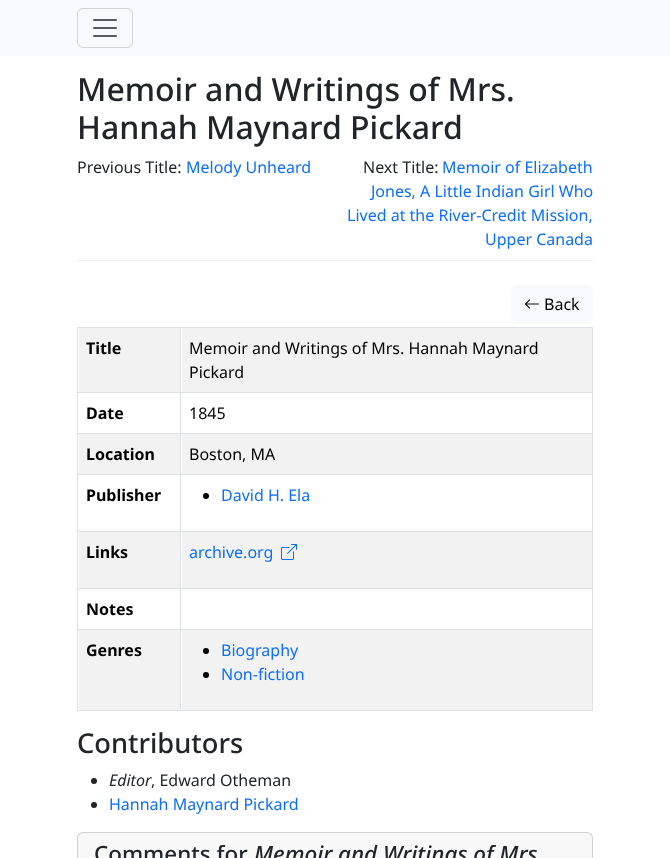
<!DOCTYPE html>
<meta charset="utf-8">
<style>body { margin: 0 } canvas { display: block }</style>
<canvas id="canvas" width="670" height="858"></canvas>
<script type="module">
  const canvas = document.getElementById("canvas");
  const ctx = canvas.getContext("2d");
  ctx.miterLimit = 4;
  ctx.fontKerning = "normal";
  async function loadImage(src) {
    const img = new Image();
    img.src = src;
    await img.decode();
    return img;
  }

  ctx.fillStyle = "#ffffff";
  ctx.fillRect(0, 0, 670, 858);
  ctx.fillStyle = "#f8f9fa";
  ctx.fillRect(0, 0, 670, 56);
  ctx.beginPath();
  ctx.roundRect(77.5, 8.5, 55, 39, 5.5);
  ctx.strokeStyle = "#d3d4d5";
  ctx.stroke();
  ctx.drawImage(await loadImage("img1.png"), 93, 19, 24, 18);
  ctx.fillStyle = "#eeeeee";
  ctx.fillRect(77, 260, 516, 1);
  ctx.font = "500 32px Noto Sans";
  ctx.fillStyle = "#212529";
  ctx.fillText("Memoir and Writings of Mrs.", 77, 101);
  ctx.fillText("Hannah Maynard Pickard", 77, 139);
  ctx.font = "16px Noto Sans";
  ctx.fillText("Previous Title:", 77, 173);
  ctx.fillStyle = "#0d6efd";
  ctx.fillText("Melody Unheard", 186, 173);
  ctx.fillStyle = "#212529";
  ctx.fillText("Next Title:", 363, 173);
  ctx.fillStyle = "#0d6efd";
  ctx.fillText("Memoir of Elizabeth", 442, 173);
  ctx.fillText("Jones, A Little Indian Girl Who", 371, 197);
  ctx.fillText("Lived at the River-Credit Mission,", 347, 221);
  ctx.fillText("Upper Canada", 485, 245);
  ctx.fillStyle = "#f8f9fa";
  ctx.beginPath();
  ctx.roundRect(511, 285, 82, 38, 6);
  ctx.fill();
  ctx.drawImage(await loadImage("img2.png"), 525, 299, 14, 10);
  ctx.fillStyle = "#000000";
  ctx.fillText("Back", 544, 310);
  ctx.fillStyle = "#dee2e6";
  ctx.fillRect(77, 327, 516, 1);
  ctx.fillStyle = "#f2f2f2";
  ctx.fillRect(79, 328, 101, 64);
  ctx.font = "bold 16px Noto Sans";
  ctx.fillStyle = "#000000";
  ctx.fillText("Title", 86, 354);
  ctx.fillStyle = "#f2f2f2";
  ctx.fillRect(182, 328, 410, 64);
  ctx.font = "16px Noto Sans";
  ctx.fillStyle = "#000000";
  ctx.fillText("Memoir and Writings of Mrs. Hannah Maynard", 189, 354);
  ctx.fillText("Pickard", 189, 378);
  ctx.fillStyle = "#dee2e6";
  ctx.fillRect(77, 392, 516, 1);
  ctx.font = "bold 16px Noto Sans";
  ctx.fillStyle = "#000000";
  ctx.fillText("Date", 86, 419);
  ctx.font = "16px Noto Sans";
  ctx.fillText("1845", 189, 419);
  ctx.fillStyle = "#dee2e6";
  ctx.fillRect(77, 433, 516, 1);
  ctx.fillStyle = "#f2f2f2";
  ctx.fillRect(79, 434, 101, 40);
  ctx.font = "bold 16px Noto Sans";
  ctx.fillStyle = "#000000";
  ctx.fillText("Location", 86, 460);
  ctx.fillStyle = "#f2f2f2";
  ctx.fillRect(182, 434, 410, 40);
  ctx.font = "16px Noto Sans";
  ctx.fillStyle = "#000000";
  ctx.fillText("Boston, MA", 189, 460);
  ctx.fillStyle = "#dee2e6";
  ctx.fillRect(77, 474, 516, 1);
  ctx.font = "bold 16px Noto Sans";
  ctx.fillStyle = "#000000";
  ctx.fillText("Publisher", 86, 501);
  ctx.beginPath();
  ctx.arc(206, 496, 3, 0, Math.PI * 2);
  ctx.fill();
  ctx.font = "16px Noto Sans";
  ctx.fillStyle = "#0d6efd";
  ctx.fillText("David H. Ela", 221, 501);
  ctx.fillStyle = "#dee2e6";
  ctx.fillRect(77, 531, 516, 1);
  ctx.fillStyle = "#f2f2f2";
  ctx.fillRect(79, 532, 101, 56);
  ctx.font = "bold 16px Noto Sans";
  ctx.fillStyle = "#000000";
  ctx.fillText("Links", 86, 558);
  ctx.fillStyle = "#f2f2f2";
  ctx.fillRect(182, 532, 410, 56);
  ctx.font = "16px Noto Sans";
  ctx.fillStyle = "#0d6efd";
  ctx.fillText("archive.org", 189, 558);
  ctx.drawImage(await loadImage("img3.png"), 281, 544, 16, 16);
  ctx.fillStyle = "#dee2e6";
  ctx.fillRect(77, 588, 516, 1);
  ctx.font = "bold 16px Noto Sans";
  ctx.fillStyle = "#000000";
  ctx.fillText("Notes", 86, 615);
  ctx.fillStyle = "#dee2e6";
  ctx.fillRect(77, 629, 516, 1);
  ctx.fillRect(77, 710, 516, 1);
  ctx.fillStyle = "#f2f2f2";
  ctx.fillRect(79, 630, 101, 80);
  ctx.fillStyle = "#dee2e6";
  ctx.fillRect(77, 327, 1, 384);
  ctx.fillStyle = "#000000";
  ctx.fillText("Genres", 86, 656);
  ctx.fillStyle = "#f2f2f2";
  ctx.fillRect(182, 630, 410, 80);
  ctx.fillStyle = "#dee2e6";
  ctx.fillRect(592, 327, 1, 384);
  ctx.fillRect(180, 327, 1, 384);
  ctx.fillStyle = "#000000";
  ctx.beginPath();
  ctx.arc(206, 651, 3, 0, Math.PI * 2);
  ctx.fill();
  ctx.font = "16px Noto Sans";
  ctx.fillStyle = "#0d6efd";
  ctx.fillText("Biography", 221, 656);
  ctx.fillStyle = "#000000";
  ctx.beginPath();
  ctx.arc(206, 675, 3, 0, Math.PI * 2);
  ctx.fill();
  ctx.fillStyle = "#0d6efd";
  ctx.fillText("Non-fiction", 221, 680);
  ctx.font = "500 27.25px Noto Sans";
  ctx.fillStyle = "#212529";
  ctx.fillText("Contributors", 77, 753);
  ctx.beginPath();
  ctx.arc(94, 781, 3, 0, Math.PI * 2);
  ctx.fill();
  ctx.font = "italic 16px Noto Sans";
  ctx.fillText("Editor", 109, 786);
  ctx.font = "16px Noto Sans";
  ctx.fillText(", Edward Otheman", 151, 786);
  ctx.beginPath();
  ctx.arc(94, 805, 3, 0, Math.PI * 2);
  ctx.fill();
  ctx.fillStyle = "#0d6efd";
  ctx.fillText("Hannah Maynard Pickard", 109, 810);
  ctx.beginPath();
  ctx.roundRect(77.5, 832.5, 515, 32, 5.5);
  ctx.strokeStyle = "#d2d2d2";
  ctx.stroke();
  ctx.fillStyle = "rgba(33, 37, 41, 0.03)";
  ctx.fillRect(78, 833, 514, 25);
  ctx.font = "500 22.4px Noto Sans";
  ctx.fillStyle = "#212529";
  ctx.fillText("Comments for", 94, 862);
  ctx.font = "italic 500 22.4px Noto Sans";
  ctx.fillText("Memoir and Writings of Mrs", 254, 862);
</script>
